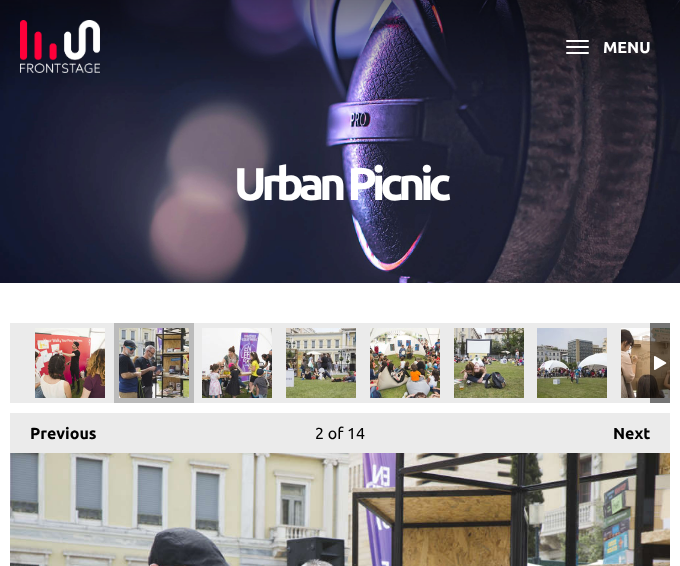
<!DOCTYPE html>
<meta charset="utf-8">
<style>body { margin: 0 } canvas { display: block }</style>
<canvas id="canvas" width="680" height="566"></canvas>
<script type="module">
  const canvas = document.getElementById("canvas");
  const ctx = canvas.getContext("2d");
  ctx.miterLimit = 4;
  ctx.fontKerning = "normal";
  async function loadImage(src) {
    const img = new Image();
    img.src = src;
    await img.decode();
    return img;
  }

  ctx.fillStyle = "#ffffff";
  ctx.fillRect(0, 0, 680, 566);
  ctx.drawImage(await loadImage("img1.png"), 0, 0, 680, 283);
  ctx.drawImage(await loadImage("img2.png"), 20, 20, 80, 53);
  ctx.beginPath();
  ctx.roundRect(566, 40, 23, 2, 1);
  ctx.fill();
  ctx.beginPath();
  ctx.roundRect(566, 46, 23, 2, 1);
  ctx.fill();
  ctx.beginPath();
  ctx.roundRect(566, 52, 23, 2, 1);
  ctx.fill();
  ctx.font = "bold 16px Ubuntu";
  ctx.fillText("MENU", 603, 53);
  ctx.letterSpacing = "-5px";
  ctx.font = "bold 46px Ubuntu";
  ctx.fillText("Urban Picnic", 234, 200);
  ctx.fillStyle = "#ebebeb";
  ctx.fillRect(10, 323, 660, 80);
  ctx.drawImage(await loadImage("img3.png"), 35, 328, 70, 70);
  ctx.fillStyle = "#bbbbbb";
  ctx.fillRect(114, 323, 80, 80);
  ctx.drawImage(await loadImage("img4.png"), 119, 328, 70, 70);
  ctx.drawImage(await loadImage("img5.png"), 202, 328, 70, 70);
  ctx.drawImage(await loadImage("img6.png"), 286, 328, 70, 70);
  ctx.drawImage(await loadImage("img7.png"), 370, 328, 70, 70);
  ctx.drawImage(await loadImage("img8.png"), 454, 328, 70, 70);
  ctx.drawImage(await loadImage("img9.png"), 537, 328, 70, 70);
  ctx.drawImage(await loadImage("img10.png"), 621, 328, 49, 70);
  ctx.drawImage(await loadImage("img11.png"), 650, 323, 20, 80);
  ctx.fillStyle = "#ebebeb";
  ctx.fillRect(10, 413, 660, 40);
  ctx.letterSpacing = "0px";
  ctx.font = "bold 16px Ubuntu";
  ctx.fillStyle = "#000000";
  ctx.fillText("Previous", 30, 439);
  ctx.font = "16px Ubuntu";
  ctx.fillText("2 of 14", 315, 439);
  ctx.font = "bold 16px Ubuntu";
  ctx.fillText("Next", 613, 439);
  ctx.drawImage(await loadImage("img12.png"), 10, 453, 660, 113);
</script>
